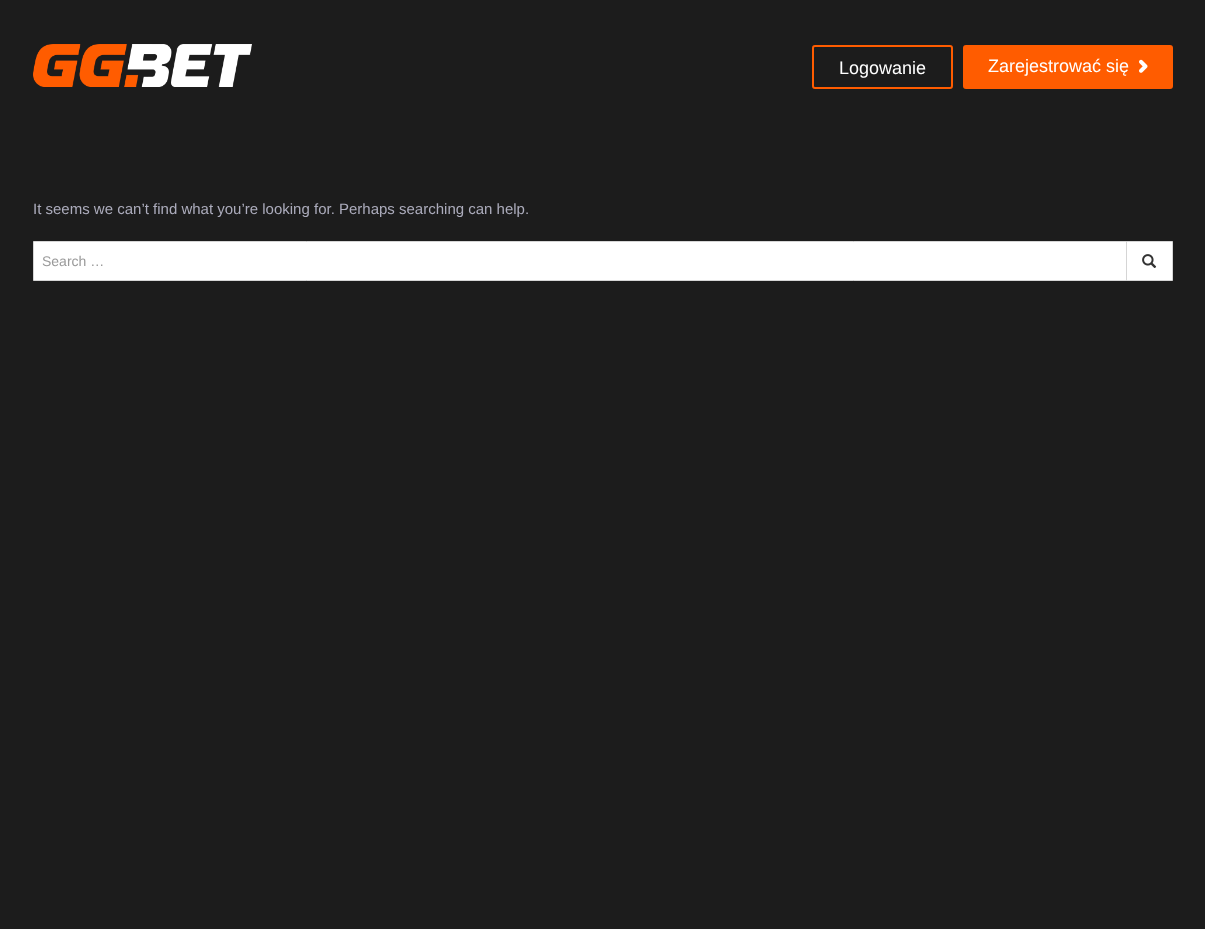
<!DOCTYPE html>
<meta charset="utf-8">
<style>body { margin: 0 } canvas { display: block }</style>
<canvas id="canvas" width="1205" height="930"></canvas>
<script type="module">
  const canvas = document.getElementById("canvas");
  const ctx = canvas.getContext("2d");
  ctx.miterLimit = 4;
  ctx.fontKerning = "normal";
  async function loadImage(src) {
    const img = new Image();
    img.src = src;
    await img.decode();
    return img;
  }

  ctx.fillStyle = "#1c1c1c";
  ctx.fillRect(0, 0, 1205, 930);
  ctx.drawImage(await loadImage("img1.png"), 33, 44, 219, 43);
  ctx.beginPath();
  ctx.roundRect(813, 46, 139, 42, 2);
  ctx.strokeStyle = "#ff5c00";
  ctx.lineWidth = 2;
  ctx.stroke();
  ctx.font = "18px Liberation Sans";
  ctx.fillStyle = "#ffffff";
  ctx.fillText("Logowanie", 839, 74);
  ctx.fillStyle = "#ff5c00";
  ctx.beginPath();
  ctx.roundRect(963, 45, 210, 44, 3);
  ctx.fill();
  ctx.fillStyle = "#ffffff";
  ctx.fillText("Zarejestrować się", 988, 72);
  ctx.drawImage(await loadImage("img2.png"), 1139, 59, 9, 14);
  ctx.font = "15px Liberation Sans";
  ctx.fillStyle = "#acacbc";
  ctx.fillText("It seems we can’t find what you’re looking for. Perhaps searching can help.", 33, 214);
  ctx.fillStyle = "#ffffff";
  ctx.beginPath();
  ctx.rect(33.5, 241.5, 1093, 39);
  ctx.fill();
  ctx.strokeStyle = "#d5d5d5";
  ctx.lineWidth = 1;
  ctx.stroke();
  ctx.font = "14px Liberation Sans";
  ctx.fillStyle = "#999999";
  ctx.fillText("Search …", 42, 266);
  ctx.fillStyle = "#ffffff";
  ctx.beginPath();
  ctx.rect(1126.5, 241.5, 46, 39);
  ctx.fill();
  ctx.stroke();
  ctx.drawImage(await loadImage("img3.png"), 1142, 254, 15, 14);
  ctx.fillStyle = "#fbfbfb";
  ctx.fillRect(0, 929, 1205, 1);
</script>
